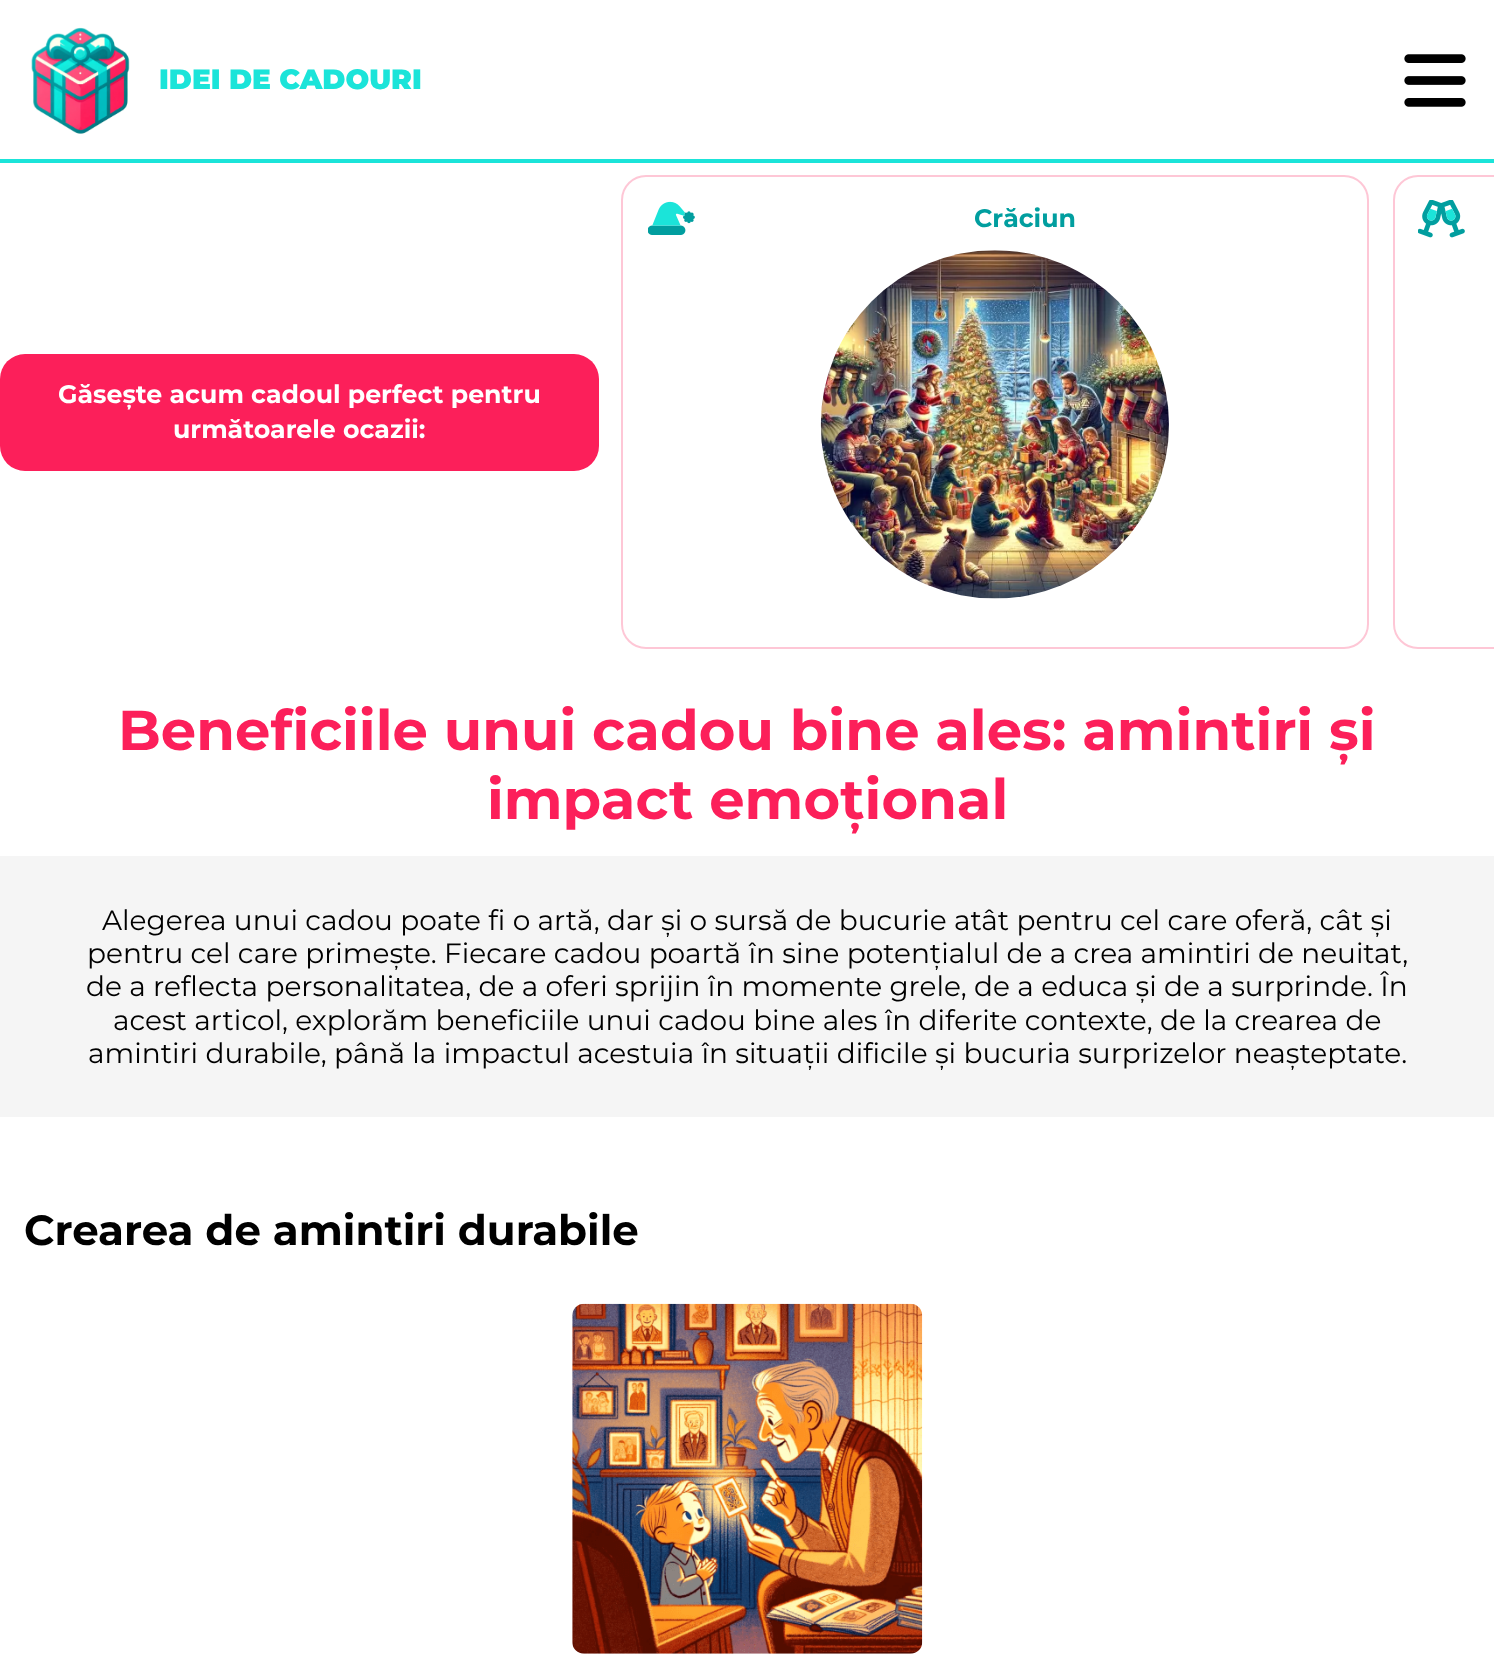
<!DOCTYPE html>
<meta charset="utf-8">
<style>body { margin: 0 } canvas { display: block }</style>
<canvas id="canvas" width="1494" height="1664"></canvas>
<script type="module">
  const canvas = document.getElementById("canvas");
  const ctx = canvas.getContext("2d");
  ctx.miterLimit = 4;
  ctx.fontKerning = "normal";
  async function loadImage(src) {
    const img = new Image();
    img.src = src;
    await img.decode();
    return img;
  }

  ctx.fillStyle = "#ffffff";
  ctx.fillRect(0, 0, 1494, 1664);
  ctx.fillStyle = "#1be4d9";
  ctx.fillRect(0, 159, 1494, 4);
  ctx.drawImage(await loadImage("img1.png"), 31, 27, 99, 107);
  ctx.font = "900 28px Montserrat";
  ctx.fillText("IDEI DE CADOURI", 159, 89);
  ctx.drawImage(await loadImage("img2.png"), 1404, 54, 62, 53);
  ctx.beginPath();
  ctx.roundRect(622, 176, 746, 472, 24);
  ctx.strokeStyle = "#fec7d6";
  ctx.lineWidth = 2;
  ctx.stroke();
  ctx.drawImage(await loadImage("img3.png"), 648, 201, 47, 34);
  ctx.font = "bold 25.25px Montserrat";
  ctx.fillStyle = "#019e9f";
  ctx.fillText("Crăciun", 974, 227);
  ctx.drawImage(await loadImage("img4.png"), 820, 250, 349, 349);
  ctx.beginPath();
  ctx.roundRect(1394, 176, 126, 472, 24);
  ctx.stroke();
  ctx.drawImage(await loadImage("img5.png"), 1418, 200, 47, 38);
  ctx.fillStyle = "#fc1f5a";
  ctx.beginPath();
  ctx.roundRect(0, 354, 599, 117, 25);
  ctx.fill();
  ctx.fillStyle = "#ffffff";
  ctx.fillText("Găsește acum cadoul perfect pentru", 58, 403);
  ctx.fillText("următoarele ocazii:", 173, 438);
  ctx.font = "bold 56px Montserrat";
  ctx.fillStyle = "#fc1f5a";
  ctx.fillText("Beneficiile unui cadou bine ales: amintiri și", 118, 750);
  ctx.fillText("impact emoțional", 487, 819);
  ctx.fillStyle = "#f5f5f5";
  ctx.fillRect(0, 856, 1494, 261);
  ctx.font = "28px Montserrat";
  ctx.fillStyle = "#000000";
  ctx.fillText("Alegerea unui cadou poate fi o artă, dar și o sursă de bucurie atât pentru cel care oferă, cât și", 102, 930);
  ctx.fillText("pentru cel care primește. Fiecare cadou poartă în sine potențialul de a crea amintiri de neuitat,", 87, 963);
  ctx.fillText("de a reflecta personalitatea, de a oferi sprijin în momente grele, de a educa și de a surprinde. În", 86, 996);
  ctx.fillText("acest articol, explorăm beneficiile unui cadou bine ales în diferite contexte, de la crearea de", 113, 1030);
  ctx.fillText("amintiri durabile, până la impactul acestuia în situații dificile și bucuria surprizelor neașteptate.", 88, 1063);
  ctx.font = "bold 42px Montserrat";
  ctx.fillText("Crearea de amintiri durabile", 24, 1245);
  ctx.drawImage(await loadImage("img6.png"), 572, 1303, 351, 351);
</script>
